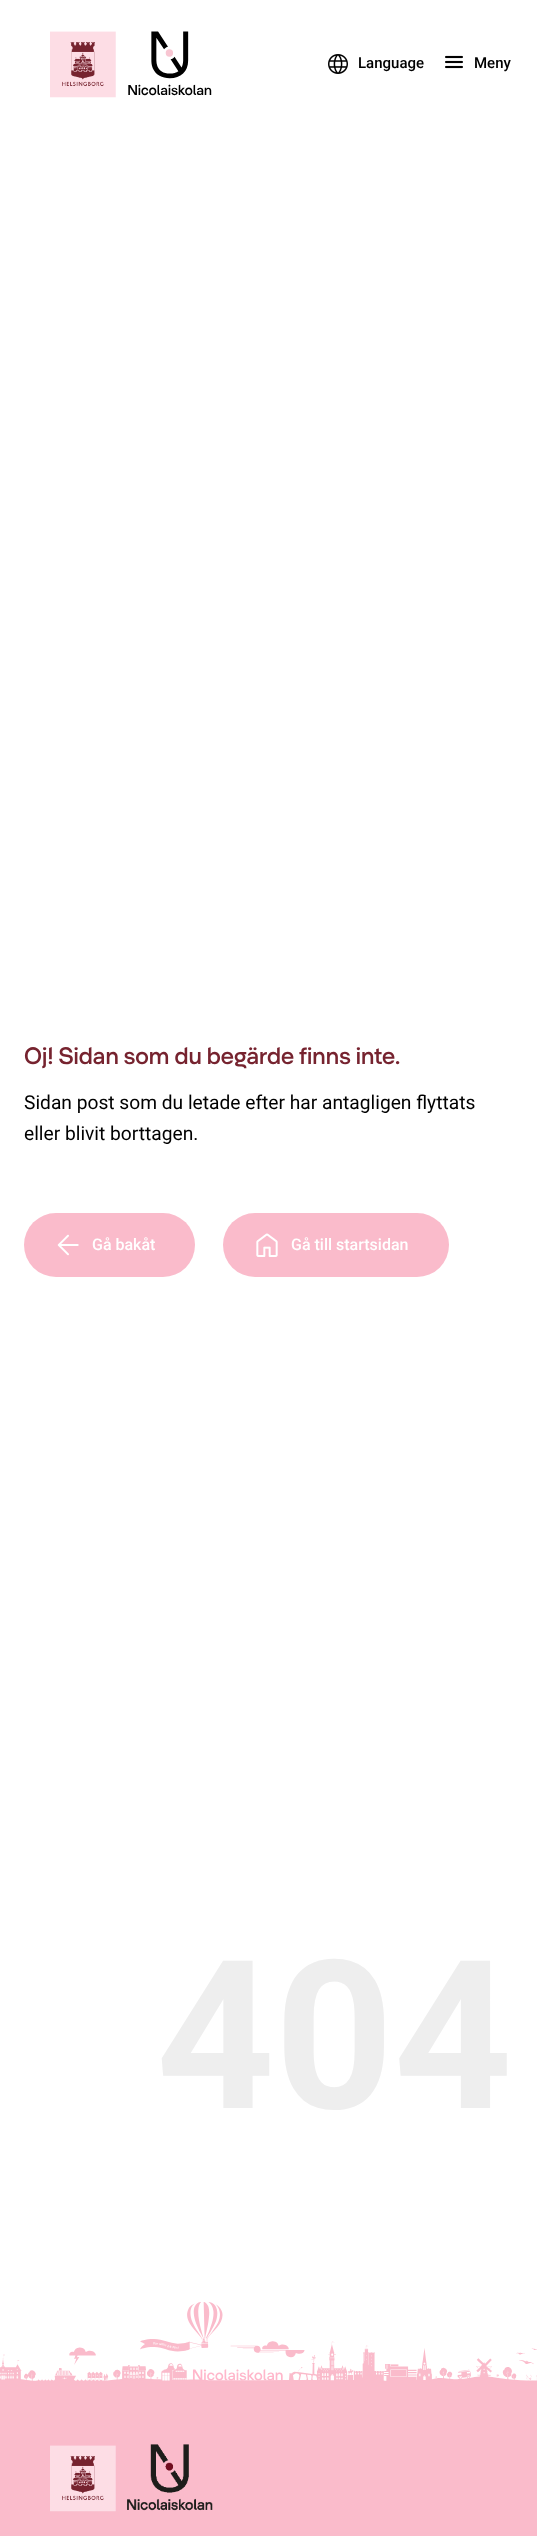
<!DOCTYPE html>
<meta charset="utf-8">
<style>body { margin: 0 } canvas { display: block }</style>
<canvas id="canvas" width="537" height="2536"></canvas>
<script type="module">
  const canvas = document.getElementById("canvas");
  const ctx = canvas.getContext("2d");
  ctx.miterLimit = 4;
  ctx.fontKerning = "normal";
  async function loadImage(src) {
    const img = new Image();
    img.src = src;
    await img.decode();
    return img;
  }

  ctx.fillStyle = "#ffffff";
  ctx.fillRect(0, 0, 537, 2536);
  ctx.drawImage(await loadImage("img1.png"), 50, 31, 162, 67);
  ctx.drawImage(await loadImage("img2.png"), 328, 54, 20, 20);
  ctx.font = "500 15px Roboto";
  ctx.fillStyle = "#000000";
  ctx.fillText("Language", 358, 68);
  ctx.drawImage(await loadImage("img3.png"), 445, 55, 18, 14);
  ctx.fillText("Meny", 474, 68);
  ctx.font = "500 24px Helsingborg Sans";
  ctx.fillStyle = "#76232f";
  ctx.fillText("Oj! Sidan som du begärde finns inte.", 24, 1064);
  ctx.font = "19.2px Roboto";
  ctx.fillStyle = "#000000";
  ctx.fillText("Sidan post som du letade efter har antagligen flyttats", 24, 1109);
  ctx.fillText("eller blivit borttagen.", 24, 1140);
  ctx.fillStyle = "#fabbcb";
  ctx.beginPath();
  ctx.roundRect(24, 1213, 171, 64, 32);
  ctx.fill();
  ctx.drawImage(await loadImage("img4.png"), 57, 1234, 22, 22);
  ctx.font = "500 16px Roboto";
  ctx.fillStyle = "#ffffff";
  ctx.fillText("Gå bakåt", 92, 1250);
  ctx.fillStyle = "#fabbcb";
  ctx.beginPath();
  ctx.roundRect(223, 1213, 226, 64, 32);
  ctx.fill();
  ctx.drawImage(await loadImage("img5.png"), 256, 1233, 22, 24);
  ctx.fillStyle = "#ffffff";
  ctx.fillText("Gå till startsidan", 291, 1250);
  ctx.font = "bold 207px Roboto";
  ctx.fillStyle = "#eeeeee";
  ctx.fillText("404", 156, 2108);
  ctx.fillStyle = "#fabbcb";
  ctx.fillRect(0, 2382, 537, 154);
  ctx.drawImage(await loadImage("img6.png"), 0, 2302, 537, 80);
  ctx.drawImage(await loadImage("img7.png"), 50, 2444, 163, 68);
</script>
